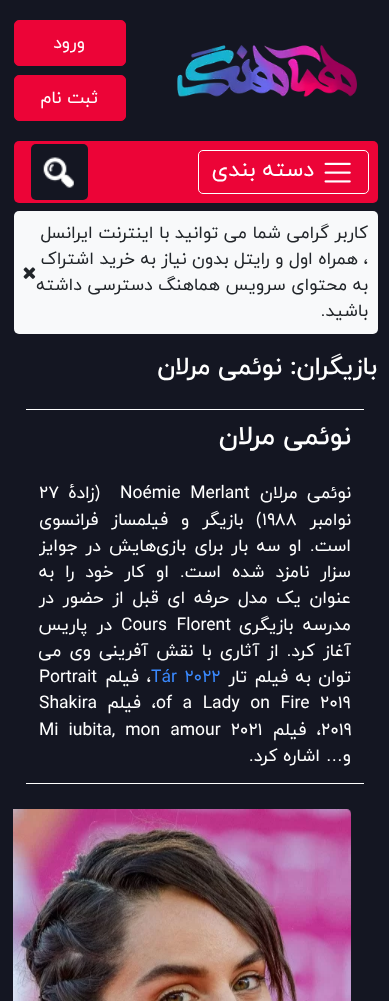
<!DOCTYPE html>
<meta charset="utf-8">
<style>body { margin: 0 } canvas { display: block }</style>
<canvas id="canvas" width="389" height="1001"></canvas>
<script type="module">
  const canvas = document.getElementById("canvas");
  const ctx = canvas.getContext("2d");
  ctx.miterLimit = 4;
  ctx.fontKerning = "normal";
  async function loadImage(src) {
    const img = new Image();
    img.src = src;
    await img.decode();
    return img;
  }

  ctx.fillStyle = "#141622";
  ctx.fillRect(0, 0, 389, 1001);
  ctx.drawImage(await loadImage("img1.png"), 177, 45, 180, 52);
  ctx.fillStyle = "#ec0437";
  ctx.beginPath();
  ctx.roundRect(14.5, 20.5, 111, 45, 4.5);
  ctx.fill();
  ctx.strokeStyle = "#ec0437";
  ctx.stroke();
  ctx.direction = "rtl";
  ctx.font = "17.5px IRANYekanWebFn";
  ctx.fillStyle = "#ffffff";
  ctx.fillText("ورود", 85, 48);
  ctx.fillStyle = "#ec0437";
  ctx.beginPath();
  ctx.roundRect(14.5, 75.5, 111, 45, 4.5);
  ctx.fill();
  ctx.stroke();
  ctx.fillStyle = "#ffffff";
  ctx.fillText("ثبت نام", 98, 103);
  ctx.fillStyle = "#ec0437";
  ctx.beginPath();
  ctx.roundRect(14, 141, 364, 62, 5);
  ctx.fill();
  ctx.beginPath();
  ctx.roundRect(198.5, 150.5, 170, 43, 4.5);
  ctx.strokeStyle = "#ffffff";
  ctx.stroke();
  ctx.drawImage(await loadImage("img2.png"), 324, 162, 27, 21);
  ctx.font = "22px IRANYekanWebFn";
  ctx.fillStyle = "#ffffff";
  ctx.fillText("دسته بندی", 314, 176);
  ctx.fillStyle = "#141622";
  ctx.beginPath();
  ctx.roundRect(31, 144, 57, 56, 5);
  ctx.fill();
  ctx.drawImage(await loadImage("img3.png"), 43, 157, 31, 31);
  ctx.fillStyle = "#f8f9fa";
  ctx.beginPath();
  ctx.roundRect(14, 211, 364, 123, 5);
  ctx.fill();
  ctx.font = "17.5px IRANYekanWebFn";
  ctx.fillStyle = "#212529";
  ctx.fillText("کاربر گرامی شما می توانید با اینترنت ایرانسل", 368, 238);
  ctx.fillText("، همراه اول و رایتل بدون نیاز به خرید اشتراک", 368, 264);
  ctx.fillText("به محتوای سرویس هماهنگ دسترسی داشته", 368, 290);
  ctx.fillText("باشید.", 368, 316);
  ctx.drawImage(await loadImage("img4.png"), 23, 267, 13, 12);
  ctx.font = "500 25px IRANYekanWebFn";
  ctx.fillStyle = "#ffffff";
  ctx.fillText("بازیگران:", 377, 374);
  ctx.fillText("نوئمی مرلان", 282, 374);
  ctx.fillRect(26, 409, 338, 1);
  ctx.fillRect(26, 783, 338, 1);
  ctx.font = "500 26.5px IRANYekanWebFn";
  ctx.fillText("نوئمی مرلان", 351, 444);
  ctx.wordSpacing = "4px";
  ctx.font = "17.5px IRANYekanWebFn";
  ctx.fillText("نوئمی مرلان", 351, 498);
  ctx.direction = "ltr";
  ctx.fillText("Noémie Merlant", 120, 498);
  ctx.wordSpacing = "0px";
  ctx.direction = "rtl";
  ctx.fillText("(زادهٔ", 100, 498);
  ctx.direction = "ltr";
  ctx.fillText("۲۷", 39, 498);
  ctx.direction = "rtl";
  ctx.fillText("نوامبر", 351, 525);
  ctx.direction = "ltr";
  ctx.fillText("۱۹۸۸", 262, 525);
  ctx.wordSpacing = "7.5px";
  ctx.direction = "rtl";
  ctx.fillText(") بازیگر و فیلمساز فرانسوی", 262, 525);
  ctx.wordSpacing = "2.75px";
  ctx.fillText("است. او سه بار برای بازی‌هایش در جوایز", 351, 551);
  ctx.wordSpacing = "5.5px";
  ctx.fillText("سزار نامزد شده است. او کار خود را به", 351, 577);
  ctx.wordSpacing = "3.25px";
  ctx.fillText("عنوان یک مدل حرفه ای قبل از حضور در", 351, 603);
  ctx.wordSpacing = "4px";
  ctx.fillText("مدرسه بازیگری", 351, 630);
  ctx.direction = "ltr";
  ctx.fillText("Cours Florent", 121, 630);
  ctx.direction = "rtl";
  ctx.fillText("در پاریس", 112, 630);
  ctx.wordSpacing = "2.5px";
  ctx.fillText("آغاز کرد. از آثاری با نقش آفرینی وی می", 351, 656);
  ctx.wordSpacing = "2px";
  ctx.fillText("توان به فیلم تار", 351, 682);
  ctx.direction = "ltr";
  ctx.fillStyle = "#3a89fd";
  ctx.fillText("Tár 2022", 151, 682);
  ctx.direction = "rtl";
  ctx.fillStyle = "#ffffff";
  ctx.fillText("، فیلم", 151, 682);
  ctx.wordSpacing = "0px";
  ctx.direction = "ltr";
  ctx.fillText("Portrait", 39, 682);
  ctx.wordSpacing = "5px";
  ctx.fillText("of a Lady on Fire 2019", 156, 708);
  ctx.direction = "rtl";
  ctx.fillText("، فیلم", 156, 708);
  ctx.wordSpacing = "0px";
  ctx.direction = "ltr";
  ctx.fillText("Shakira", 39, 708);
  ctx.fillText("2019", 321, 735);
  ctx.wordSpacing = "4.5px";
  ctx.direction = "rtl";
  ctx.fillText("، فیلم", 321, 735);
  ctx.direction = "ltr";
  ctx.fillText("Mi iubita, mon amour 2021", 39, 735);
  ctx.wordSpacing = "0px";
  ctx.direction = "rtl";
  ctx.fillText("و", 351, 761);
  ctx.font = "17.5px Liberation Sans";
  ctx.fillText("…", 343, 761);
  ctx.font = "17.5px IRANYekanWebFn";
  ctx.fillText("اشاره کرد.", 320, 761);
  ctx.drawImage(await loadImage("img5.png"), 13, 809, 338, 192);
</script>
